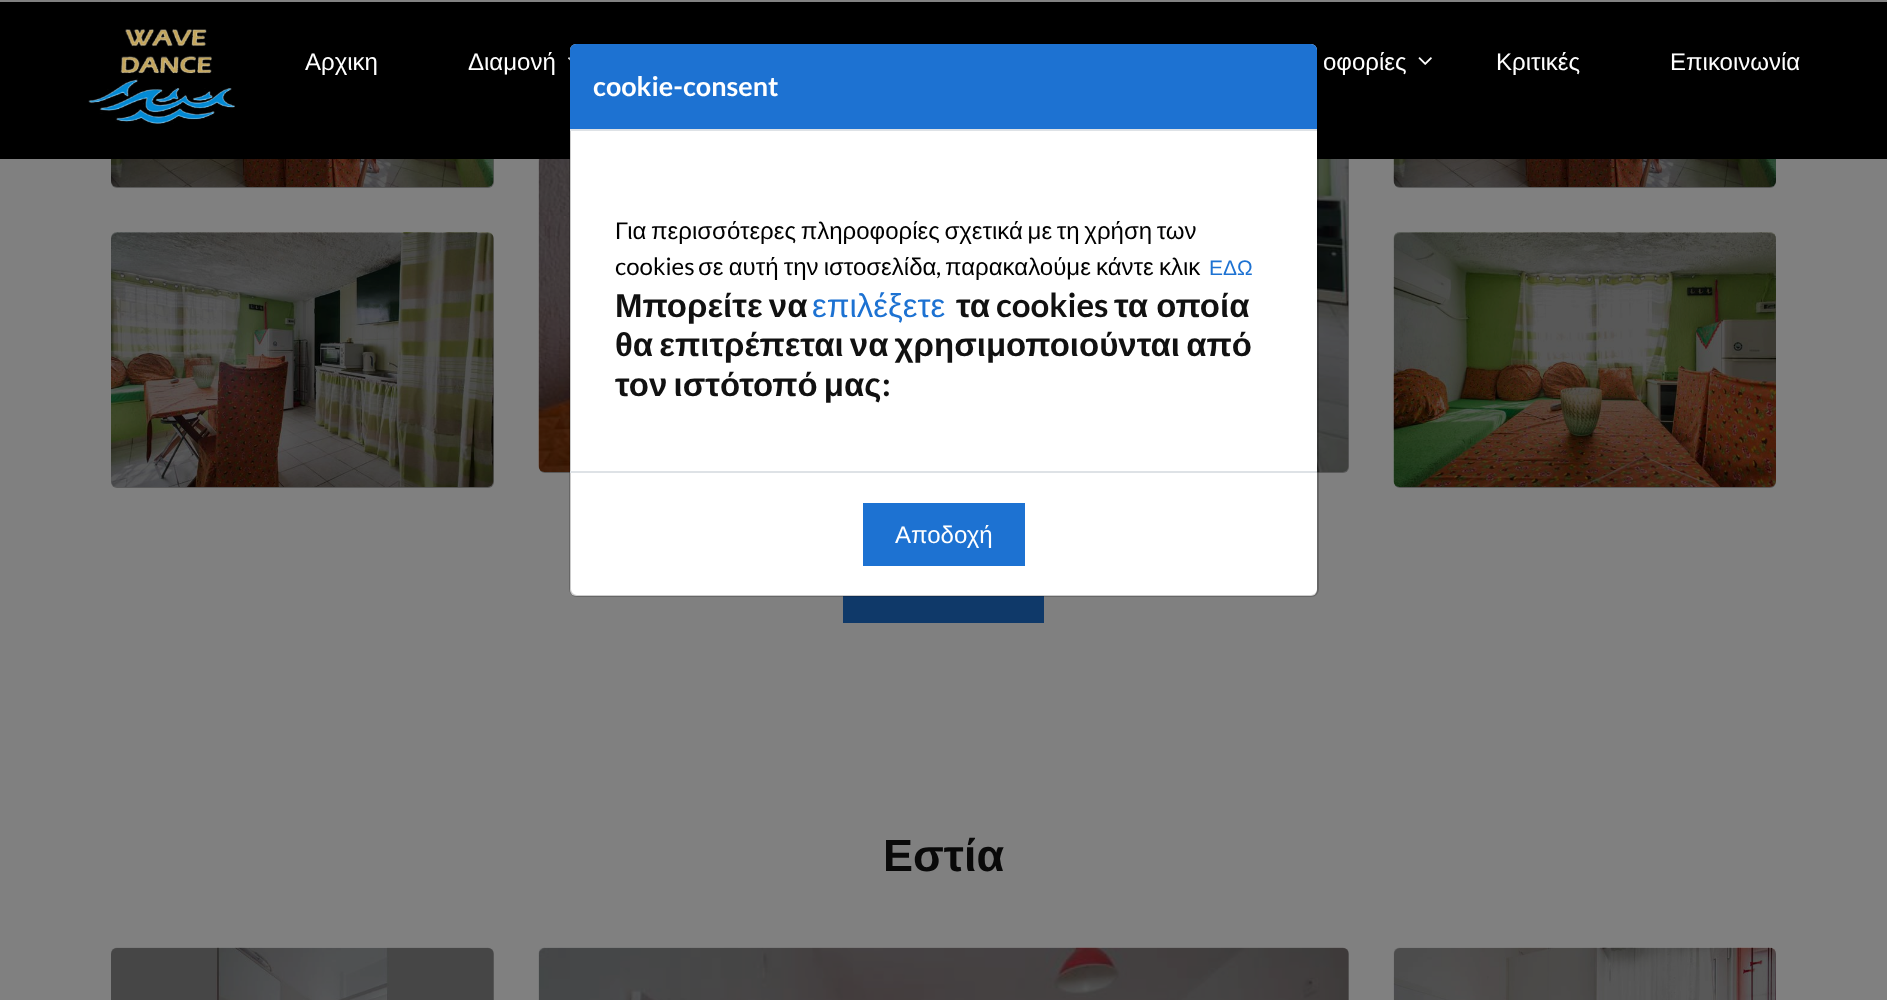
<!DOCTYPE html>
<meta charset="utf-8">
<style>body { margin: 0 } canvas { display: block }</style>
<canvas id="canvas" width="1887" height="1000"></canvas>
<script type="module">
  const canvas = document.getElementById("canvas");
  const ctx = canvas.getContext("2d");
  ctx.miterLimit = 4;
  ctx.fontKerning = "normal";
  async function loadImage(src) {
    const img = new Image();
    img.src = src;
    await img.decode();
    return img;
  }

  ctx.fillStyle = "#808080";
  ctx.fillRect(0, 0, 1887, 1000);
  ctx.drawImage(await loadImage("img4.png"), 111, 159, 383, 28);
  ctx.fillStyle = "rgba(0, 0, 0, 0.3)";
  ctx.beginPath();
  ctx.roundRect(111, -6, 383, 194, 6);
  ctx.fill();
  ctx.drawImage(await loadImage("img6.png"), 538, 159, 811, 313);
  ctx.beginPath();
  ctx.roundRect(539, -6, 810, 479, 6);
  ctx.fill();
  ctx.drawImage(await loadImage("img7.png"), 1393, 159, 383, 28);
  ctx.beginPath();
  ctx.roundRect(1394, -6, 382, 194, 6);
  ctx.fill();
  ctx.fillStyle = "#000000";
  ctx.fillRect(0, 2, 1887, 157);
  ctx.fillStyle = "#828282";
  ctx.fillRect(111, 0, 1665, 2);
  ctx.drawImage(await loadImage("img1.png"), 88, 29, 147, 95);
  ctx.font = "24px Liberation Sans";
  ctx.fillStyle = "#ffffff";
  ctx.fillText("Αρχικη", 305, 70);
  ctx.fillText("Διαμονή", 468, 70);
  ctx.drawImage(await loadImage("img2.png"), 568, 57, 2, 4);
  ctx.fillText("οφορίες", 1323, 70);
  ctx.drawImage(await loadImage("img3.png"), 1418, 57, 14, 8);
  ctx.fillText("Κριτικές", 1496, 70);
  ctx.fillText("Επικοινωνία", 1670, 70);
  ctx.beginPath();
  ctx.roundRect(570, 44, 747, 552, 6);
  ctx.fill();
  ctx.fillStyle = "#0f3969";
  ctx.fillRect(843, 596, 201, 27);
  ctx.beginPath();
  ctx.roundRect(570, 43, 748, 553, 7);
  ctx.strokeStyle = "rgba(0, 0, 0, 0.2)";
  ctx.lineWidth = 2;
  ctx.stroke();
  ctx.fillStyle = "#1d72d2";
  ctx.beginPath();
  ctx.roundRect(570, 44, 747, 87, [6, 6, 0, 0]);
  ctx.fill();
  ctx.fillStyle = "#dee2e6";
  ctx.fillRect(570, 129, 747, 2);
  ctx.font = "bold 27px Lato";
  ctx.fillStyle = "#ffffff";
  ctx.fillText("cookie-consent", 593, 96);
  ctx.wordSpacing = "-2px";
  ctx.font = "24px Liberation Sans";
  ctx.fillStyle = "#000000";
  ctx.fillText("Για περισσότερες πληροφορίες σχετικά με τη χρήση των", 615, 239);
  ctx.wordSpacing = "0px";
  ctx.font = "24px Lato";
  ctx.fillText("cookies", 615, 275);
  ctx.wordSpacing = "-1.5px";
  ctx.font = "24px Liberation Sans";
  ctx.fillText("σε αυτή την ιστοσελίδα", 698, 275);
  ctx.wordSpacing = "0px";
  ctx.font = "24px Lato";
  ctx.fillText(",", 936, 275);
  ctx.wordSpacing = "-1.5px";
  ctx.font = "24px Liberation Sans";
  ctx.fillText("παρακαλούμε κάντε κλικ", 945, 275);
  ctx.wordSpacing = "0px";
  ctx.font = "21px Liberation Sans";
  ctx.fillStyle = "#1d72d2";
  ctx.fillText("ΕΔΩ", 1209, 275);
  ctx.wordSpacing = "-3px";
  ctx.font = "bold 33px Liberation Sans";
  ctx.fillStyle = "#111111";
  ctx.fillText("Μπορείτε να", 615, 317);
  ctx.wordSpacing = "0px";
  ctx.font = "33px Liberation Sans";
  ctx.fillStyle = "#1d72d2";
  ctx.fillText("επιλέξετε", 812, 317);
  ctx.font = "bold 33px Liberation Sans";
  ctx.fillStyle = "#111111";
  ctx.fillText("τα", 956, 317);
  ctx.font = "bold 33px Lato";
  ctx.fillText("cookies", 996, 317);
  ctx.wordSpacing = "-1px";
  ctx.font = "bold 33px Liberation Sans";
  ctx.fillText("τα οποία", 1114, 317);
  ctx.wordSpacing = "-3px";
  ctx.fillText("θα επιτρέπεται να χρησιμοποιούνται από", 615, 356);
  ctx.fillText("τον ιστότοπό μας", 615, 396);
  ctx.wordSpacing = "0px";
  ctx.font = "bold 33px Lato";
  ctx.fillText(":", 882, 396);
  ctx.fillStyle = "#dee2e6";
  ctx.fillRect(570, 471, 747, 2);
  ctx.fillStyle = "#1d72d2";
  ctx.fillRect(863, 503, 162, 63);
  ctx.font = "24px Liberation Sans";
  ctx.fillStyle = "#ffffff";
  ctx.fillText("Αποδοχή", 895, 543);
  ctx.drawImage(await loadImage("img5.png"), 111, 232, 383, 255);
  ctx.fillStyle = "rgba(0, 0, 0, 0.3)";
  ctx.beginPath();
  ctx.roundRect(111, 233, 383, 255, 6);
  ctx.fill();
  ctx.drawImage(await loadImage("img8.png"), 1393, 232, 383, 255);
  ctx.beginPath();
  ctx.roundRect(1394, 233, 382, 255, 6);
  ctx.fill();
  ctx.font = "bold 45px Liberation Sans";
  ctx.fillStyle = "#090909";
  ctx.fillText("Εστία", 883, 871);
  ctx.drawImage(await loadImage("img9.png"), 111, 947, 383, 53);
  ctx.fillStyle = "rgba(0, 0, 0, 0.3)";
  ctx.beginPath();
  ctx.roundRect(111, 948, 383, 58, 6);
  ctx.fill();
  ctx.drawImage(await loadImage("img10.png"), 538, 947, 811, 53);
  ctx.beginPath();
  ctx.roundRect(539, 948, 810, 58, 6);
  ctx.fill();
  ctx.drawImage(await loadImage("img11.png"), 1393, 947, 383, 53);
  ctx.beginPath();
  ctx.roundRect(1394, 948, 382, 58, 6);
  ctx.fill();
</script>
